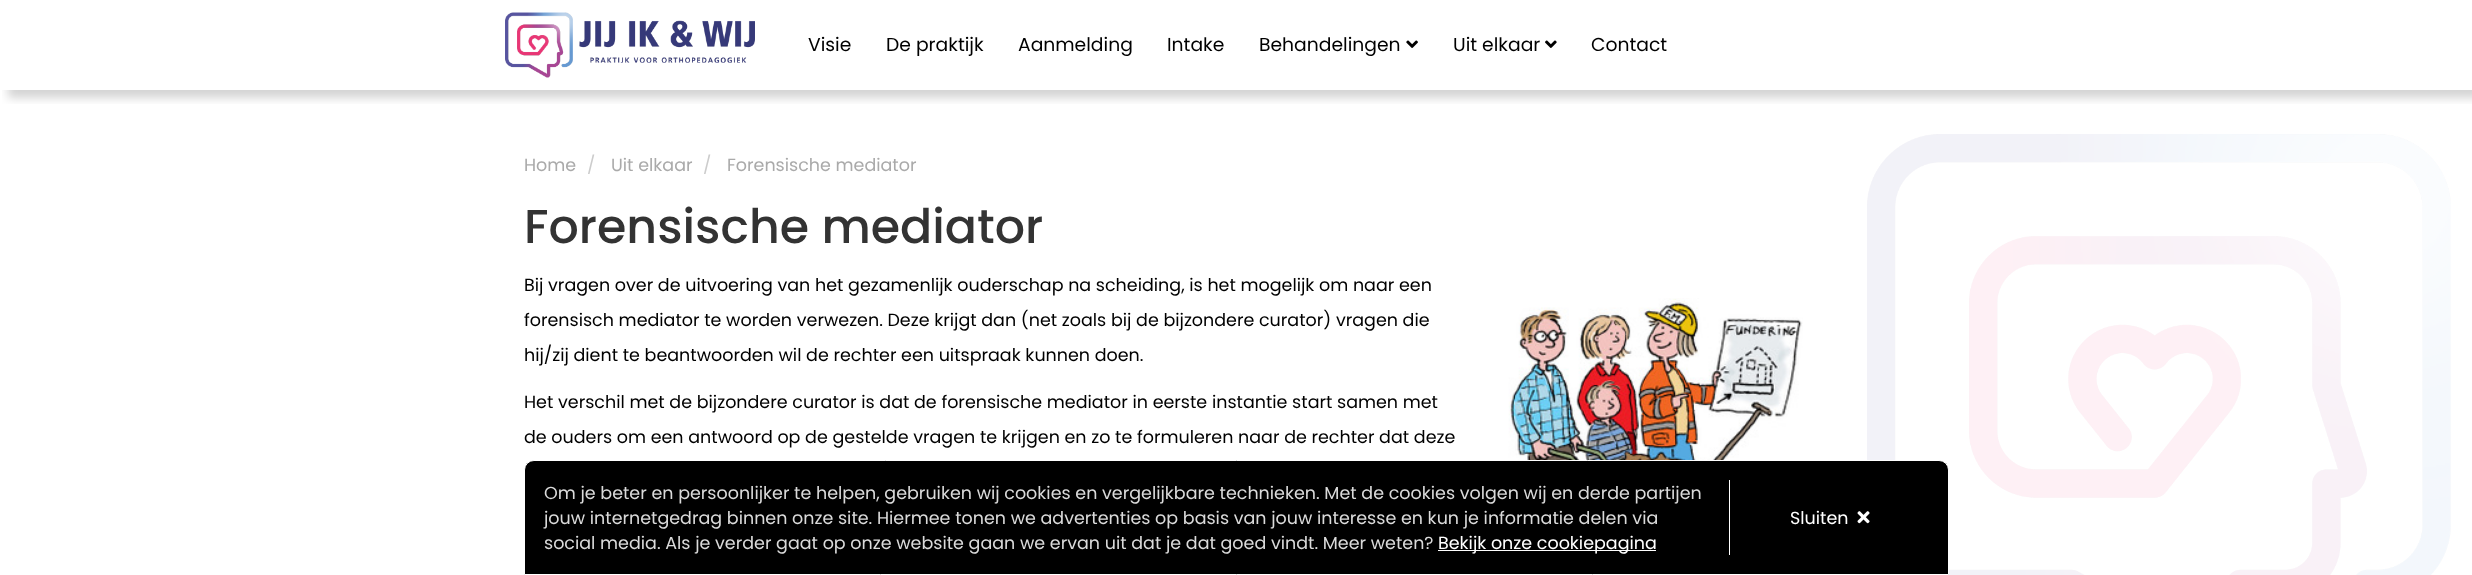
<!DOCTYPE html>
<meta charset="utf-8">
<style>body { margin: 0 } canvas { display: block }</style>
<canvas id="canvas" width="2472" height="575"></canvas>
<script type="module">
  const canvas = document.getElementById("canvas");
  const ctx = canvas.getContext("2d");
  ctx.miterLimit = 4;
  ctx.fontKerning = "normal";
  async function loadImage(src) {
    const img = new Image();
    img.src = src;
    await img.decode();
    return img;
  }

  ctx.fillStyle = "#ffffff";
  ctx.fillRect(0, 0, 2472, 575);
  ctx.save();
  ctx.beginPath();
  ctx.rect(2, 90, 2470, 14);
  ctx.clip();
  ctx.fillStyle = "rgba(0, 0, 0, 0.17)";
  ctx.filter = "blur(5px)";
  ctx.beginPath();
  ctx.rect(8, 8, 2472, 90);
  ctx.fill();
  ctx.filter = "none";
  ctx.restore();
  ctx.drawImage(await loadImage("img1.png"), 505, 12, 250, 66);
  ctx.font = "18.75px Poppins";
  ctx.fillStyle = "#000000";
  ctx.fillText("Visie", 808, 51);
  ctx.fillText("De praktijk", 886, 51);
  ctx.fillText("Aanmelding", 1018, 51);
  ctx.fillText("Intake", 1167, 51);
  ctx.fillText("Behandelingen", 1259, 51);
  ctx.drawImage(await loadImage("img2.png"), 1406, 40, 12, 8);
  ctx.fillText("Uit elkaar", 1453, 51);
  ctx.drawImage(await loadImage("img3.png"), 1545, 40, 12, 8);
  ctx.fillText("Contact", 1591, 51);
  ctx.font = "17.5px Poppins";
  ctx.fillStyle = "#aaaaaa";
  ctx.fillText("Home", 524, 171);
  ctx.fillStyle = "#cccccc";
  ctx.fillText("/", 587, 171);
  ctx.fillStyle = "#aaaaaa";
  ctx.fillText("Uit elkaar", 611, 171);
  ctx.fillStyle = "#cccccc";
  ctx.fillText("/", 703, 171);
  ctx.fillStyle = "#aaaaaa";
  ctx.fillText("Forensische mediator", 727, 171);
  ctx.font = "500 47.5px Poppins";
  ctx.fillStyle = "#333333";
  ctx.fillText("Forensische mediator", 524, 243);
  ctx.drawImage(await loadImage("img4.png"), 1867, 134, 584, 441);
  ctx.font = "17.5px Poppins";
  ctx.fillStyle = "#000000";
  ctx.fillText("Bij vragen over de uitvoering van het gezamenlijk ouderschap na scheiding, is het mogelijk om naar een", 524, 291);
  ctx.fillText("forensisch mediator te worden verwezen. Deze krijgt dan (net zoals bij de bijzondere curator) vragen die", 524, 326);
  ctx.fillText("hij/zij dient te beantwoorden wil de rechter een uitspraak kunnen doen.", 524, 361);
  ctx.fillText("Het verschil met de bijzondere curator is dat de forensische mediator in eerste instantie start samen met", 524, 408);
  ctx.fillText("de ouders om een antwoord op de gestelde vragen te krijgen en zo te formuleren naar de rechter dat deze", 524, 443);
  ctx.drawImage(await loadImage("img5.png"), 1502, 298, 301, 162);
  ctx.beginPath();
  ctx.roundRect(524.5, 460.5, 1424, 114, [9.5, 9.5, 0, 0]);
  ctx.fill();
  ctx.strokeStyle = "#ffffff";
  ctx.stroke();
  ctx.fillStyle = "#dadada";
  ctx.fillText("Om je beter en persoonlijker te helpen, gebruiken wij cookies en vergelijkbare technieken. Met de cookies volgen wij en derde partijen", 544, 499);
  ctx.fillText("jouw internetgedrag binnen onze site. Hiermee tonen we advertenties op basis van jouw interesse en kun je informatie delen via", 544, 524);
  ctx.fillText("social media. Als je verder gaat op onze website gaan we ervan uit dat je dat goed vindt. Meer weten?", 544, 549);
  ctx.fillStyle = "#ffffff";
  ctx.fillRect(1438, 550, 218, 1);
  ctx.fillText("Bekijk onze cookiepagina", 1438, 549);
  ctx.fillRect(1729, 480, 1, 75);
  ctx.fillText("Sluiten", 1790, 524);
  ctx.drawImage(await loadImage("img6.png"), 1857, 511, 13, 13);
</script>
